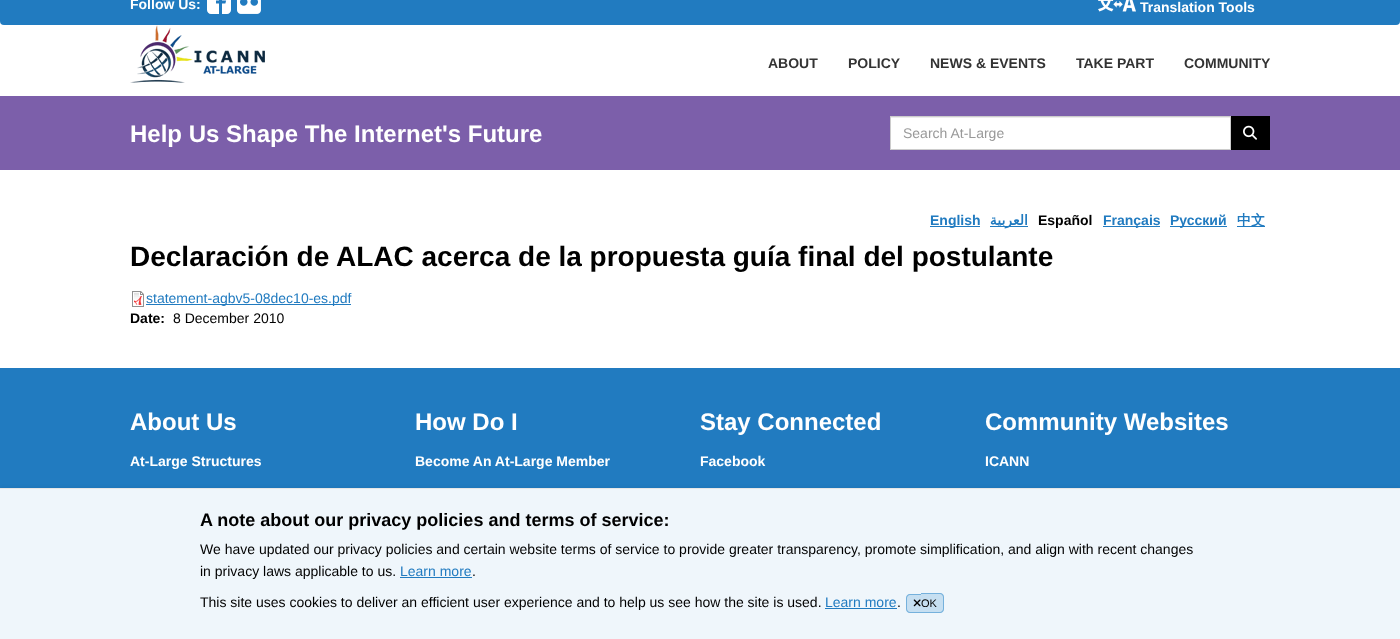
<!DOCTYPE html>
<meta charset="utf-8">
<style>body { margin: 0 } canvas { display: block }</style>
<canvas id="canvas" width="1400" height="639"></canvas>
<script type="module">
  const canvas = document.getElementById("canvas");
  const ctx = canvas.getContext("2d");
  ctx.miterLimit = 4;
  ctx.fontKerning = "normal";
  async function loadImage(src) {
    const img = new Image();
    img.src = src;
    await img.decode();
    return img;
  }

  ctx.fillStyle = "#ffffff";
  ctx.fillRect(0, 0, 1400, 639);
  ctx.fillStyle = "#217bc0";
  ctx.beginPath();
  ctx.roundRect(0, -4, 1400, 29, 4);
  ctx.fill();
  ctx.font = "bold 14px Liberation Sans";
  ctx.fillStyle = "#ffffff";
  ctx.fillText("Follow Us:", 130, 9);
  ctx.drawImage(await loadImage("img1.png"), 207, 0, 24, 14);
  ctx.drawImage(await loadImage("img2.png"), 237, 0, 24, 14);
  ctx.drawImage(await loadImage("img3.png"), 1098, 0, 38, 12);
  ctx.fillText("Translation Tools", 1140, 12);
  ctx.drawImage(await loadImage("img4.png"), 130, 25, 135, 58);
  ctx.fillStyle = "#333333";
  ctx.fillText("ABOUT", 768, 68);
  ctx.fillText("POLICY", 848, 68);
  ctx.fillText("NEWS & EVENTS", 930, 68);
  ctx.fillText("TAKE PART", 1076, 68);
  ctx.fillText("COMMUNITY", 1184, 68);
  ctx.fillStyle = "#7c5faa";
  ctx.fillRect(0, 96, 1400, 74);
  ctx.font = "bold 24px Liberation Sans";
  ctx.fillStyle = "#ffffff";
  ctx.fillText("Help Us Shape The Internet's Future", 130, 142);
  ctx.fillRect(891, 118, 339, 31);
  ctx.fillStyle = "#ececec";
  ctx.fillRect(891, 117, 339, 1);
  ctx.strokeStyle = "#cccccc";
  ctx.strokeRect(890.5, 116.5, 340, 33);
  ctx.font = "14px Liberation Sans";
  ctx.fillStyle = "#999999";
  ctx.fillText("Search At-Large", 903, 138);
  ctx.fillStyle = "#000000";
  ctx.fillRect(1231, 116, 39, 34);
  ctx.drawImage(await loadImage("img5.png"), 1243, 125, 14, 15);
  ctx.fillStyle = "#217bc0";
  ctx.fillRect(930, 226, 50, 1);
  ctx.font = "bold 14px Liberation Sans";
  ctx.fillText("English", 930, 225);
  ctx.fillRect(990, 226, 38, 1);
  ctx.direction = "rtl";
  ctx.font = "bold 14px DejaVu Sans";
  ctx.fillText("العربية", 1028, 225);
  ctx.direction = "ltr";
  ctx.font = "bold 14px Liberation Sans";
  ctx.fillStyle = "#000000";
  ctx.fillText("Español", 1038, 225);
  ctx.fillStyle = "#217bc0";
  ctx.fillRect(1103, 226, 57, 1);
  ctx.fillText("Français", 1103, 225);
  ctx.fillRect(1170, 226, 57, 1);
  ctx.fillText("Pусский", 1170, 225);
  ctx.fillRect(1237, 226, 28, 1);
  ctx.font = "bold 14px WenQuanYi Zen Hei";
  ctx.fillText("中文", 1237, 225);
  ctx.font = "bold 28px Liberation Sans";
  ctx.fillStyle = "#000000";
  ctx.fillText("Declaración de ALAC acerca de la propuesta guía final del postulante", 130, 266);
  ctx.drawImage(await loadImage("img6.png"), 132, 291, 12, 16);
  ctx.fillStyle = "#217bc0";
  ctx.fillRect(146, 304, 205, 1);
  ctx.font = "14px Liberation Sans";
  ctx.fillText("statement-agbv5-08dec10-es.pdf", 146, 303);
  ctx.font = "bold 14px Liberation Sans";
  ctx.fillStyle = "#000000";
  ctx.fillText("Date:", 130, 323);
  ctx.font = "14px Liberation Sans";
  ctx.fillText("8 December 2010", 173, 323);
  ctx.fillStyle = "#217bc0";
  ctx.fillRect(0, 368, 1400, 120);
  ctx.font = "bold 24px Liberation Sans";
  ctx.fillStyle = "#ffffff";
  ctx.fillText("About Us", 130, 430);
  ctx.font = "bold 14px Liberation Sans";
  ctx.fillText("At-Large Structures", 130, 466);
  ctx.font = "bold 24px Liberation Sans";
  ctx.fillText("How Do I", 415, 430);
  ctx.font = "bold 14px Liberation Sans";
  ctx.fillText("Become An At-Large Member", 415, 466);
  ctx.font = "bold 24px Liberation Sans";
  ctx.fillText("Stay Connected", 700, 430);
  ctx.font = "bold 14px Liberation Sans";
  ctx.fillText("Facebook", 700, 466);
  ctx.font = "bold 24px Liberation Sans";
  ctx.fillText("Community Websites", 985, 430);
  ctx.font = "bold 14px Liberation Sans";
  ctx.fillText("ICANN", 985, 466);
  ctx.fillStyle = "rgba(0, 0, 0, 0.05)";
  ctx.filter = "blur(1.5px)";
  ctx.beginPath();
  ctx.rect(0, 487, 1400, 151);
  ctx.fill();
  ctx.filter = "none";
  ctx.fillStyle = "#eff6fb";
  ctx.fillRect(0, 489, 1400, 150);
  ctx.fillStyle = "#e6e6e6";
  ctx.fillRect(0, 488, 1400, 1);
  ctx.font = "bold 18px Liberation Sans";
  ctx.fillStyle = "#000000";
  ctx.fillText("A note about our privacy policies and terms of service:", 200, 526);
  ctx.font = "14px Liberation Sans";
  ctx.fillText("We have updated our privacy policies and certain website terms of service to provide greater transparency, promote simplification, and align with recent changes", 200, 554);
  ctx.fillText("in privacy laws applicable to us.", 200, 576);
  ctx.fillStyle = "#217bc0";
  ctx.fillText("Learn more", 400, 576);
  ctx.fillRect(400, 577, 72, 1);
  ctx.fillStyle = "#000000";
  ctx.fillText(".", 472, 576);
  ctx.fillText("This site uses cookies to deliver an efficient user experience and to help us see how the site is used.", 200, 607);
  ctx.fillStyle = "#217bc0";
  ctx.fillText("Learn more", 825, 607);
  ctx.fillRect(825, 608, 72, 1);
  ctx.fillStyle = "#000000";
  ctx.fillText(".", 897, 607);
  ctx.fillStyle = "#c6dff1";
  ctx.beginPath();
  ctx.roundRect(906, 594, 15, 19, [4, 0, 0, 4]);
  ctx.fill();
  ctx.fillStyle = "#75b1dc";
  ctx.beginPath();
  ctx.moveTo(910, 594);
  ctx.lineTo(921, 594);
  ctx.lineTo(921, 613);
  ctx.lineTo(910, 613);
  ctx.bezierCurveTo(908, 613, 906, 611, 906, 609);
  ctx.lineTo(906, 598);
  ctx.bezierCurveTo(906, 596, 908, 594, 910, 594);
  ctx.closePath();
  ctx.moveTo(910, 595);
  ctx.lineTo(921, 595);
  ctx.lineTo(921, 612);
  ctx.lineTo(910, 612);
  ctx.bezierCurveTo(908.5, 612, 907, 610.5, 907, 609);
  ctx.lineTo(907, 598);
  ctx.bezierCurveTo(907, 596.5, 908.5, 595, 910, 595);
  ctx.closePath();
  ctx.fill("evenodd");
  ctx.fillStyle = "#c6dff1";
  ctx.beginPath();
  ctx.roundRect(921, 593, 23, 20, [0, 4, 4, 0]);
  ctx.fill();
  ctx.fillStyle = "#75b1dc";
  ctx.beginPath();
  ctx.moveTo(921, 593);
  ctx.lineTo(940, 593);
  ctx.bezierCurveTo(942, 593, 944, 595, 944, 597);
  ctx.lineTo(944, 609);
  ctx.bezierCurveTo(944, 611, 942, 613, 940, 613);
  ctx.lineTo(921, 613);
  ctx.closePath();
  ctx.moveTo(921, 594);
  ctx.lineTo(940, 594);
  ctx.bezierCurveTo(941.5, 594, 943, 595.5, 943, 597);
  ctx.lineTo(943, 609);
  ctx.bezierCurveTo(943, 610.5, 941.5, 612, 940, 612);
  ctx.lineTo(921, 612);
  ctx.closePath();
  ctx.fill("evenodd");
  ctx.drawImage(await loadImage("img7.png"), 913, 599, 8, 8);
  ctx.font = "11px Liberation Sans";
  ctx.fillStyle = "#000000";
  ctx.fillText("OK", 921, 607);
</script>
